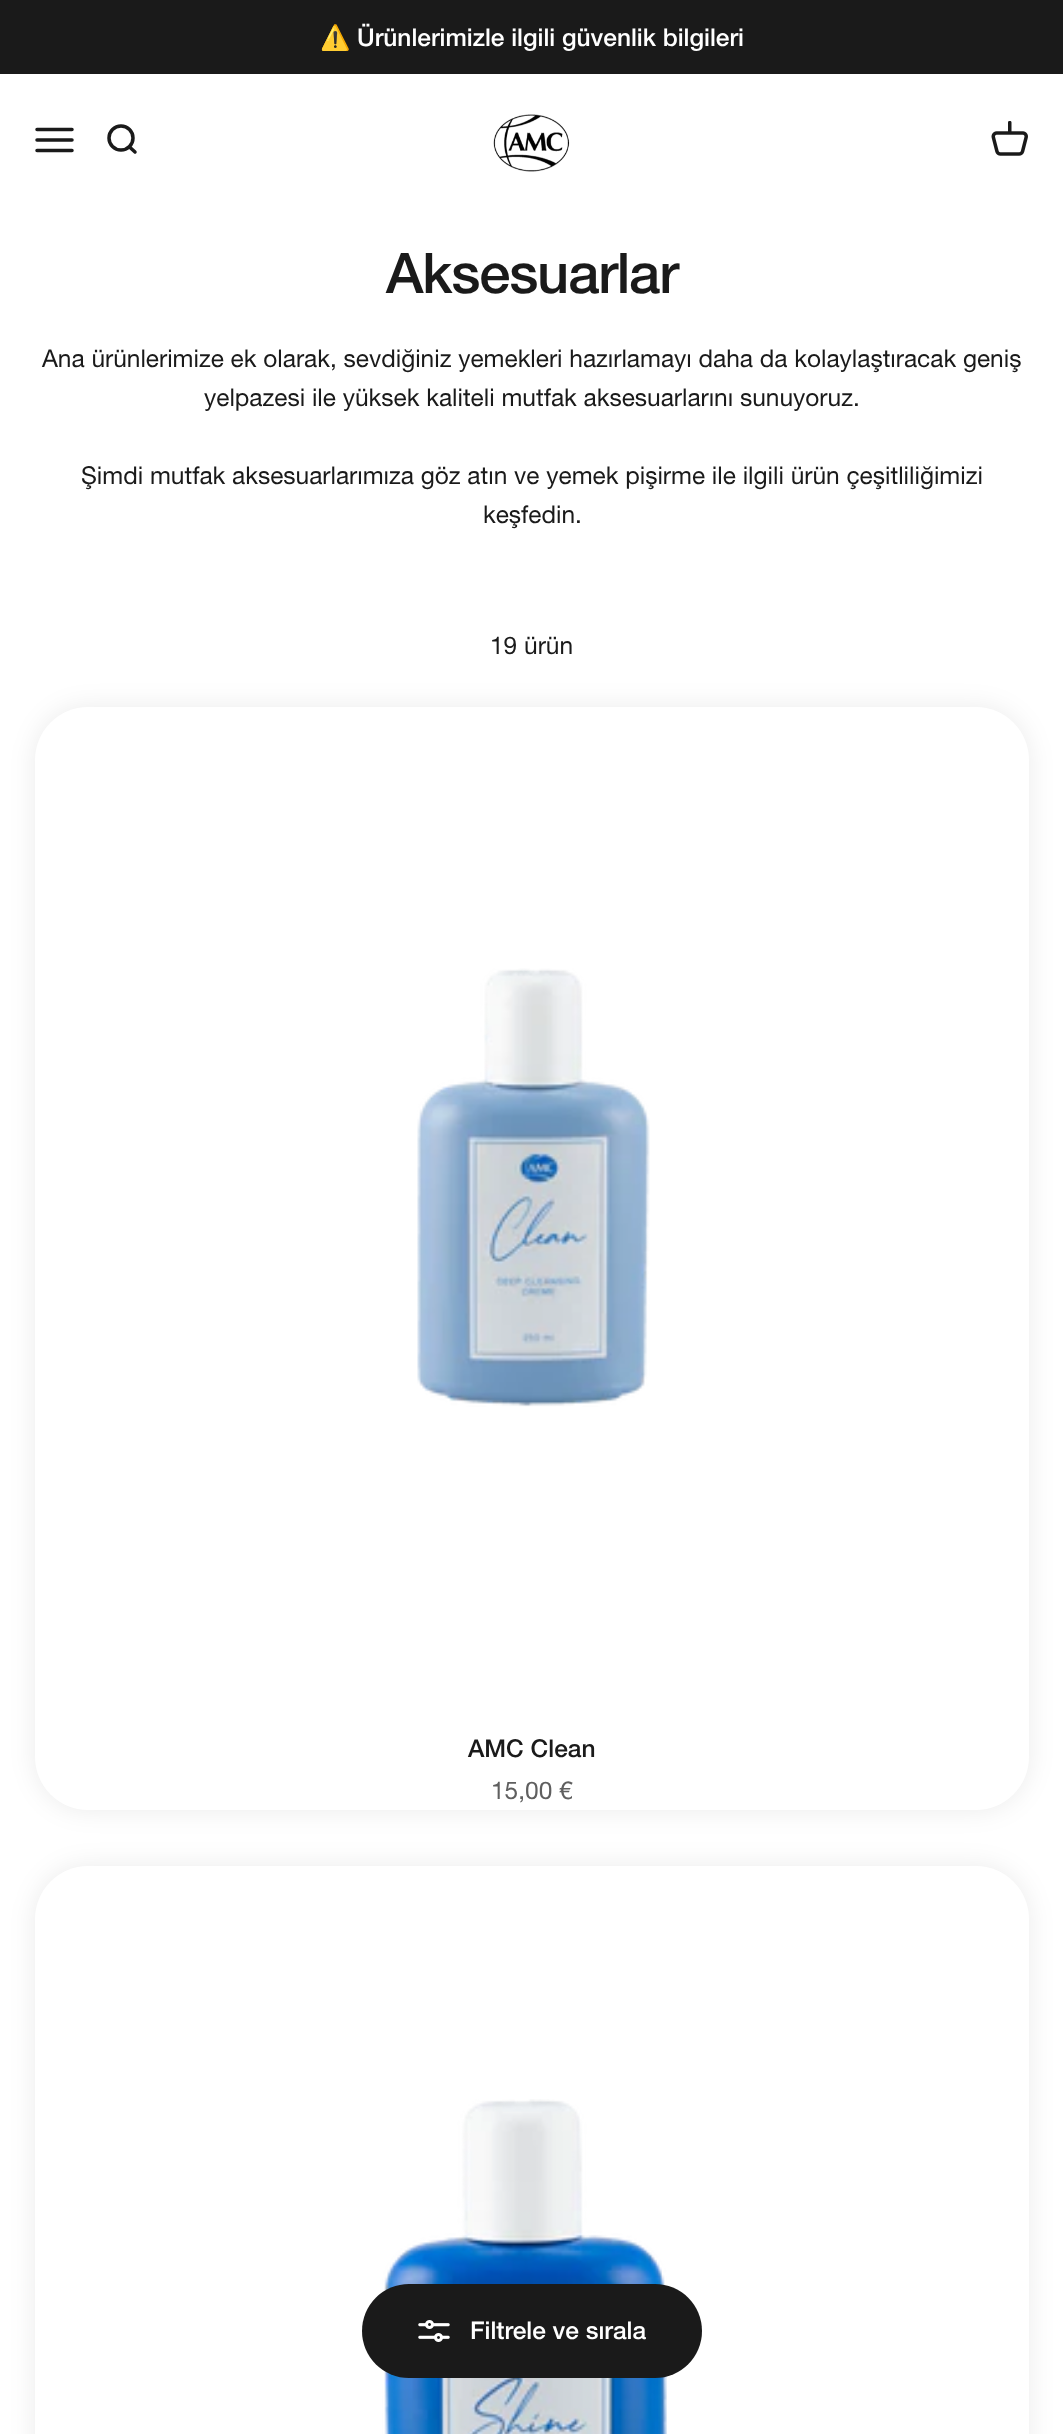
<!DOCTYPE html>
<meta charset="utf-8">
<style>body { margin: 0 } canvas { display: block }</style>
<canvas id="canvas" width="1063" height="2434"></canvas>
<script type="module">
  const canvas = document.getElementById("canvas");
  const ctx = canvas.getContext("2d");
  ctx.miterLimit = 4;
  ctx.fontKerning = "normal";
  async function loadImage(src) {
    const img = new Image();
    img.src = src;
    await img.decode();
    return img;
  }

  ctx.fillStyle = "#ffffff";
  ctx.fillRect(0, 0, 1063, 2434);
  ctx.fillStyle = "#1a1a1a";
  ctx.fillRect(0, 0, 1063, 74);
  ctx.font = "24.5px Noto Color Emoji";
  ctx.fillStyle = "#ffffff";
  ctx.fillText("⚠️", 320, 46);
  ctx.font = "500 24.5px Helvetica Neue";
  ctx.fillText("Ürünlerimizle ilgili güvenlik bilgileri", 357, 46);
  ctx.beginPath();
  ctx.moveTo(37, 129.5);
  ctx.lineTo(72, 129.5);
  ctx.moveTo(37, 140);
  ctx.lineTo(72, 140);
  ctx.moveTo(37, 150.5);
  ctx.lineTo(72, 150.5);
  ctx.strokeStyle = "#1a1a1a";
  ctx.lineWidth = 3.5;
  ctx.lineCap = "round";
  ctx.stroke();
  ctx.beginPath();
  ctx.arc(121, 138, 12, 0, Math.PI * 2);
  ctx.stroke();
  ctx.beginPath();
  ctx.moveTo(129.5, 147);
  ctx.lineTo(135, 152);
  ctx.lineJoin = "round";
  ctx.stroke();
  ctx.drawImage(await loadImage("img1.png"), 493, 114, 77, 58);
  ctx.drawImage(await loadImage("img2.png"), 991, 121, 37, 35);
  ctx.letterSpacing = "-1.1px";
  ctx.font = "500 56px Helvetica Neue";
  ctx.fillStyle = "#1a1a1a";
  ctx.fillText("Aksesuarlar", 386, 293);
  ctx.letterSpacing = "0px";
  ctx.font = "24.5px Helvetica Neue";
  ctx.fillText("Ana ürünlerimize ek olarak, sevdiğiniz yemekleri hazırlamayı daha da kolaylaştıracak geniş", 42, 367);
  ctx.fillText("yelpazesi ile yüksek kaliteli mutfak aksesuarlarını sunuyoruz.", 204, 406);
  ctx.fillText("Şimdi mutfak aksesuarlarımıza göz atın ve yemek pişirme ile ilgili ürün çeşitliliğimizi", 81, 484);
  ctx.fillText("keşfedin.", 483, 523);
  ctx.fillText("19 ürün", 490, 654);
  ctx.fillStyle = "rgba(0, 0, 0, 0.08)";
  ctx.filter = "blur(13px)";
  ctx.beginPath();
  ctx.roundRect(35, 707, 994, 1103, 53);
  ctx.fill();
  ctx.filter = "none";
  ctx.fillStyle = "#ffffff";
  ctx.beginPath();
  ctx.roundRect(35, 707, 994, 1103, 53);
  ctx.fill();
  ctx.drawImage(await loadImage("img3.png"), 417, 968, 233, 439);
  ctx.font = "500 24.5px Helvetica Neue";
  ctx.fillStyle = "#1a1a1a";
  ctx.fillText("AMC Clean", 468, 1757);
  ctx.font = "24.5px Helvetica Neue";
  ctx.fillStyle = "#5f5f5f";
  ctx.fillText("15,00 €", 491, 1799);
  ctx.fillStyle = "rgba(0, 0, 0, 0.08)";
  ctx.filter = "blur(13px)";
  ctx.beginPath();
  ctx.roundRect(35, 1866, 994, 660, 53);
  ctx.fill();
  ctx.filter = "none";
  ctx.fillStyle = "#ffffff";
  ctx.beginPath();
  ctx.roundRect(35, 1866, 994, 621, 53);
  ctx.fill();
  ctx.drawImage(await loadImage("img4.png"), 382, 2099, 285, 335);
  ctx.fillStyle = "#1a1a1a";
  ctx.beginPath();
  ctx.roundRect(362, 2284, 340, 94, 47);
  ctx.fill();
  ctx.drawImage(await loadImage("img5.png"), 418, 2320, 32, 22);
  ctx.font = "500 24.5px Helvetica Neue";
  ctx.fillStyle = "#ffffff";
  ctx.fillText("Filtrele ve sırala", 470, 2339);
</script>
